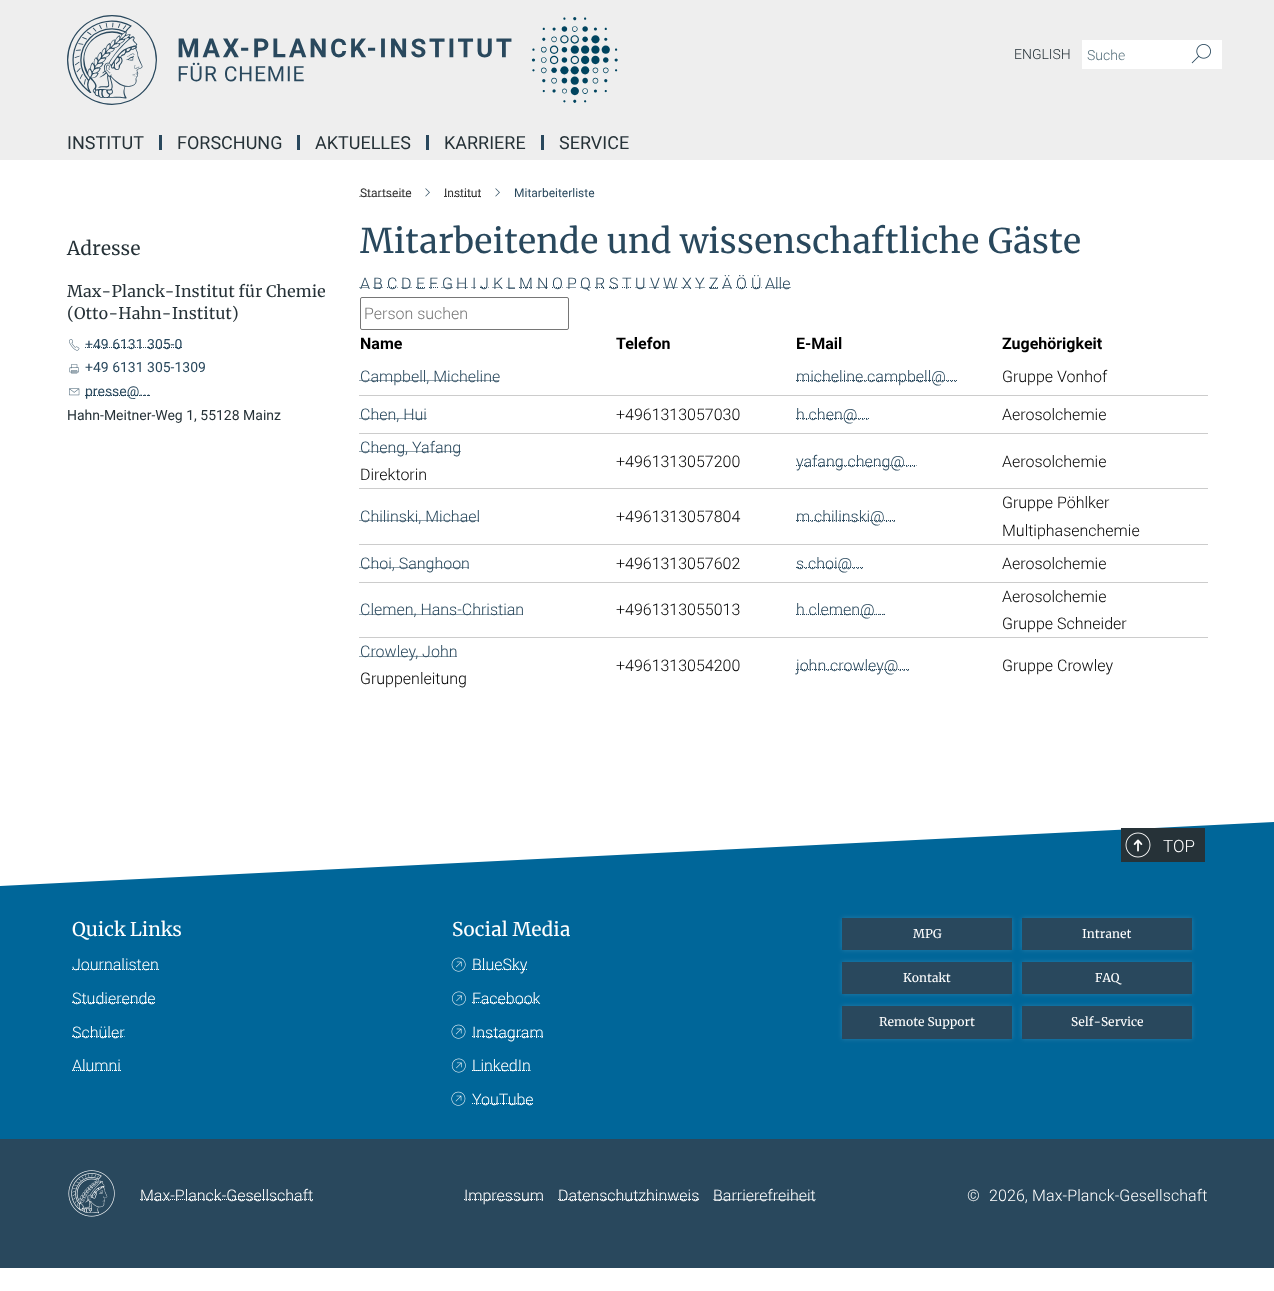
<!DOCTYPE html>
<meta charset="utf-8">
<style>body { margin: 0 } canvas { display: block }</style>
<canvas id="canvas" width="1274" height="1291"></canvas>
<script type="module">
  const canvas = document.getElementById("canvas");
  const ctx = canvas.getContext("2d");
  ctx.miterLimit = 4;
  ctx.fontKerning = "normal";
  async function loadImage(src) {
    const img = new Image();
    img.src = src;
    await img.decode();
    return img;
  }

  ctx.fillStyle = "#ffffff";
  ctx.fillRect(0, 0, 1274, 1291);
  ctx.fillStyle = "#eeeeee";
  ctx.fillRect(0, 0, 1274, 160);
  ctx.drawImage(await loadImage("img1.png"), 67, 15, 551, 90);
  ctx.font = "300 14px Roboto";
  ctx.fillStyle = "#263238";
  ctx.fillText("ENGLISH", 1014, 59);
  ctx.fillStyle = "#ffffff";
  ctx.fillRect(1082, 40, 140, 29);
  ctx.fillStyle = "#546e7a";
  ctx.fillText("Suche", 1087, 60);
  ctx.drawImage(await loadImage("img2.png"), 1191, 44, 20, 20);
  ctx.fillStyle = "#29485d";
  ctx.fillRect(159, 135, 3, 15);
  ctx.font = "18px Roboto";
  ctx.fillStyle = "#263238";
  ctx.fillText("INSTITUT", 67, 149);
  ctx.fillStyle = "#29485d";
  ctx.fillRect(297, 135, 3, 15);
  ctx.fillStyle = "#263238";
  ctx.fillText("FORSCHUNG", 177, 149);
  ctx.fillStyle = "#29485d";
  ctx.fillRect(426, 135, 3, 15);
  ctx.fillStyle = "#263238";
  ctx.fillText("AKTUELLES", 315, 149);
  ctx.fillStyle = "#29485d";
  ctx.fillRect(541, 135, 3, 15);
  ctx.fillStyle = "#263238";
  ctx.fillText("KARRIERE", 444, 149);
  ctx.fillText("SERVICE", 559, 149);
  ctx.font = "19px Merriweather";
  ctx.fillText("Adresse", 67, 255);
  ctx.font = "16px Merriweather";
  ctx.fillText("Max-Planck-Institut für Chemie", 67, 297);
  ctx.fillText("(Otto-Hahn-Institut)", 67, 319);
  ctx.drawImage(await loadImage("img3.png"), 69, 339, 11, 12);
  ctx.beginPath();
  ctx.moveTo(85, 347.5);
  ctx.lineTo(182, 347.5);
  ctx.strokeStyle = "#29485d";
  ctx.setLineDash([1, 1]);
  ctx.stroke();
  ctx.font = "14px Roboto";
  ctx.fillStyle = "#29485d";
  ctx.fillText("+49 6131 305-0", 85, 349);
  ctx.drawImage(await loadImage("img4.png"), 69, 364, 10, 10);
  ctx.fillText("+49 6131 305-1309", 85, 372);
  ctx.drawImage(await loadImage("img5.png"), 69, 388, 11, 8);
  ctx.beginPath();
  ctx.moveTo(85, 395.5);
  ctx.lineTo(150, 395.5);
  ctx.stroke();
  ctx.fillText("presse@...", 85, 396);
  ctx.fillStyle = "#263238";
  ctx.fillText("Hahn-Meitner-Weg 1, 55128 Mainz", 67, 420);
  ctx.beginPath();
  ctx.moveTo(359.5, 196.5);
  ctx.lineTo(411, 196.5);
  ctx.strokeStyle = "#333333";
  ctx.stroke();
  ctx.font = "12px Roboto";
  ctx.fillStyle = "#333333";
  ctx.fillText("Startseite", 360, 197);
  ctx.drawImage(await loadImage("img6.png"), 425, 188, 5, 9);
  ctx.beginPath();
  ctx.moveTo(444, 196.5);
  ctx.lineTo(481.5, 196.5);
  ctx.stroke();
  ctx.fillText("Institut", 444, 197);
  ctx.drawImage(await loadImage("img6.png"), 495, 188, 5, 9);
  ctx.fillStyle = "#29485d";
  ctx.fillText("Mitarbeiterliste", 514, 197);
  ctx.font = "34px Merriweather";
  ctx.fillText("Mitarbeitende und wissenschaftliche Gäste", 360, 253);
  ctx.beginPath();
  ctx.moveTo(359.5, 287.5);
  ctx.lineTo(369.5, 287.5);
  ctx.strokeStyle = "#29485d";
  ctx.stroke();
  ctx.font = "300 16px Roboto";
  ctx.fillText("A", 360, 289);
  ctx.beginPath();
  ctx.moveTo(373.5, 287.5);
  ctx.lineTo(383, 287.5);
  ctx.stroke();
  ctx.fillText("B", 373, 289);
  ctx.beginPath();
  ctx.moveTo(387, 287.5);
  ctx.lineTo(397.5, 287.5);
  ctx.stroke();
  ctx.fillText("C", 387, 289);
  ctx.beginPath();
  ctx.moveTo(401.5, 287.5);
  ctx.lineTo(412, 287.5);
  ctx.stroke();
  ctx.fillText("D", 401, 289);
  ctx.beginPath();
  ctx.moveTo(416, 287.5);
  ctx.lineTo(425, 287.5);
  ctx.stroke();
  ctx.fillText("E", 416, 289);
  ctx.beginPath();
  ctx.moveTo(429, 287.5);
  ctx.lineTo(438, 287.5);
  ctx.stroke();
  ctx.fillText("F", 429, 289);
  ctx.beginPath();
  ctx.moveTo(441.5, 287.5);
  ctx.lineTo(452.5, 287.5);
  ctx.stroke();
  ctx.fillText("G", 442, 289);
  ctx.beginPath();
  ctx.moveTo(456.5, 287.5);
  ctx.lineTo(468, 287.5);
  ctx.stroke();
  ctx.fillText("H", 456, 289);
  ctx.beginPath();
  ctx.moveTo(471.5, 287.5);
  ctx.lineTo(472.5, 287.5);
  ctx.moveTo(473.5, 287.5);
  ctx.lineTo(474.5, 287.5);
  ctx.moveTo(475.5, 287.5);
  ctx.lineTo(476, 287.5);
  ctx.setLineDash([]);
  ctx.stroke();
  ctx.fillText("I", 472, 289);
  ctx.beginPath();
  ctx.moveTo(480, 287.5);
  ctx.lineTo(488.5, 287.5);
  ctx.setLineDash([1, 1]);
  ctx.stroke();
  ctx.fillText("J", 480, 289);
  ctx.beginPath();
  ctx.moveTo(492.5, 287.5);
  ctx.lineTo(502.5, 287.5);
  ctx.stroke();
  ctx.fillText("K", 493, 289);
  ctx.beginPath();
  ctx.moveTo(506.5, 287.5);
  ctx.lineTo(515, 287.5);
  ctx.stroke();
  ctx.fillText("L", 507, 289);
  ctx.beginPath();
  ctx.moveTo(519, 287.5);
  ctx.lineTo(532.5, 287.5);
  ctx.stroke();
  ctx.fillText("M", 519, 289);
  ctx.beginPath();
  ctx.moveTo(536.5, 287.5);
  ctx.lineTo(548, 287.5);
  ctx.stroke();
  ctx.fillText("N", 537, 289);
  ctx.beginPath();
  ctx.moveTo(552, 287.5);
  ctx.lineTo(562.5, 287.5);
  ctx.stroke();
  ctx.fillText("O", 552, 289);
  ctx.beginPath();
  ctx.moveTo(566.5, 287.5);
  ctx.lineTo(576.5, 287.5);
  ctx.stroke();
  ctx.fillText("P", 567, 289);
  ctx.beginPath();
  ctx.moveTo(580.5, 287.5);
  ctx.lineTo(591, 287.5);
  ctx.stroke();
  ctx.fillText("Q", 580, 289);
  ctx.beginPath();
  ctx.moveTo(595, 287.5);
  ctx.lineTo(605, 287.5);
  ctx.stroke();
  ctx.fillText("R", 595, 289);
  ctx.beginPath();
  ctx.moveTo(609, 287.5);
  ctx.lineTo(618.5, 287.5);
  ctx.stroke();
  ctx.fillText("S", 609, 289);
  ctx.beginPath();
  ctx.moveTo(622, 287.5);
  ctx.lineTo(631.5, 287.5);
  ctx.stroke();
  ctx.fillText("T", 622, 289);
  ctx.beginPath();
  ctx.moveTo(635.5, 287.5);
  ctx.lineTo(646, 287.5);
  ctx.stroke();
  ctx.fillText("U", 635, 289);
  ctx.beginPath();
  ctx.moveTo(649.5, 287.5);
  ctx.lineTo(659.5, 287.5);
  ctx.stroke();
  ctx.fillText("V", 650, 289);
  ctx.beginPath();
  ctx.moveTo(663.5, 287.5);
  ctx.lineTo(678, 287.5);
  ctx.stroke();
  ctx.fillText("W", 663, 289);
  ctx.beginPath();
  ctx.moveTo(681.5, 287.5);
  ctx.lineTo(691.5, 287.5);
  ctx.stroke();
  ctx.fillText("X", 682, 289);
  ctx.beginPath();
  ctx.moveTo(695.5, 287.5);
  ctx.lineTo(705, 287.5);
  ctx.stroke();
  ctx.fillText("Y", 695, 289);
  ctx.beginPath();
  ctx.moveTo(709, 287.5);
  ctx.lineTo(718.5, 287.5);
  ctx.stroke();
  ctx.fillText("Z", 709, 289);
  ctx.beginPath();
  ctx.moveTo(722.5, 287.5);
  ctx.lineTo(732.5, 287.5);
  ctx.stroke();
  ctx.fillText("Ä", 722, 289);
  ctx.beginPath();
  ctx.moveTo(736, 287.5);
  ctx.lineTo(747, 287.5);
  ctx.stroke();
  ctx.fillText("Ö", 736, 289);
  ctx.beginPath();
  ctx.moveTo(751, 287.5);
  ctx.lineTo(761.5, 287.5);
  ctx.stroke();
  ctx.fillText("Ü", 751, 289);
  ctx.beginPath();
  ctx.moveTo(765.5, 287.5);
  ctx.lineTo(791, 287.5);
  ctx.stroke();
  ctx.fillText("Alle", 765, 289);
  ctx.beginPath();
  ctx.roundRect(360.5, 297.5, 208, 32, 1.5);
  ctx.strokeStyle = "#767676";
  ctx.setLineDash([]);
  ctx.stroke();
  ctx.fillStyle = "#757575";
  ctx.fillText("Person suchen", 364, 319);
  ctx.font = "bold 16px Roboto";
  ctx.fillStyle = "#000000";
  ctx.fillText("Name", 360, 349);
  ctx.fillText("Telefon", 616, 349);
  ctx.fillText("E-Mail", 796, 349);
  ctx.fillText("Zugehörigkeit", 1002, 349);
  ctx.fillStyle = "#cccccc";
  ctx.fillRect(359, 395, 849, 1);
  ctx.beginPath();
  ctx.moveTo(359.5, 380.5);
  ctx.lineTo(499.5, 380.5);
  ctx.strokeStyle = "#29485d";
  ctx.setLineDash([1, 1]);
  ctx.stroke();
  ctx.font = "300 16px Roboto";
  ctx.fillStyle = "#29485d";
  ctx.fillText("Campbell, Micheline", 360, 382);
  ctx.beginPath();
  ctx.moveTo(796, 380.5);
  ctx.lineTo(957.5, 380.5);
  ctx.stroke();
  ctx.fillText("micheline.campbell@...", 796, 382);
  ctx.fillStyle = "#000000";
  ctx.fillText("Gruppe Vonhof", 1002, 382);
  ctx.fillStyle = "#cccccc";
  ctx.fillRect(359, 433, 849, 1);
  ctx.beginPath();
  ctx.moveTo(359.5, 418.5);
  ctx.lineTo(426.5, 418.5);
  ctx.stroke();
  ctx.fillStyle = "#29485d";
  ctx.fillText("Chen, Hui", 360, 420);
  ctx.fillStyle = "#000000";
  ctx.fillText("+4961313057030", 616, 420);
  ctx.beginPath();
  ctx.moveTo(796, 418.5);
  ctx.lineTo(869, 418.5);
  ctx.stroke();
  ctx.fillStyle = "#29485d";
  ctx.fillText("h.chen@...", 796, 420);
  ctx.fillStyle = "#000000";
  ctx.fillText("Aerosolchemie", 1002, 420);
  ctx.fillStyle = "#cccccc";
  ctx.fillRect(359, 488, 849, 1);
  ctx.beginPath();
  ctx.moveTo(359.5, 451.5);
  ctx.lineTo(460.5, 451.5);
  ctx.stroke();
  ctx.fillStyle = "#29485d";
  ctx.fillText("Cheng, Yafang", 360, 453);
  ctx.fillStyle = "#000000";
  ctx.fillText("Direktorin", 360, 480);
  ctx.fillText("+4961313057200", 616, 467);
  ctx.beginPath();
  ctx.moveTo(796, 465.5);
  ctx.lineTo(916.5, 465.5);
  ctx.stroke();
  ctx.fillStyle = "#29485d";
  ctx.fillText("yafang.cheng@...", 796, 467);
  ctx.fillStyle = "#000000";
  ctx.fillText("Aerosolchemie", 1002, 467);
  ctx.fillStyle = "#cccccc";
  ctx.fillRect(359, 544, 849, 1);
  ctx.beginPath();
  ctx.moveTo(359.5, 520.5);
  ctx.lineTo(479.5, 520.5);
  ctx.stroke();
  ctx.fillStyle = "#29485d";
  ctx.fillText("Chilinski, Michael", 360, 522);
  ctx.fillStyle = "#000000";
  ctx.fillText("+4961313057804", 616, 522);
  ctx.beginPath();
  ctx.moveTo(796, 520.5);
  ctx.lineTo(896, 520.5);
  ctx.stroke();
  ctx.fillStyle = "#29485d";
  ctx.fillText("m.chilinski@...", 796, 522);
  ctx.fillStyle = "#000000";
  ctx.fillText("Gruppe Pöhlker", 1002, 508);
  ctx.fillText("Multiphasenchemie", 1002, 536);
  ctx.fillStyle = "#cccccc";
  ctx.fillRect(359, 582, 849, 1);
  ctx.beginPath();
  ctx.moveTo(359.5, 567.5);
  ctx.lineTo(469.5, 567.5);
  ctx.stroke();
  ctx.fillStyle = "#29485d";
  ctx.fillText("Choi, Sanghoon", 360, 569);
  ctx.fillStyle = "#000000";
  ctx.fillText("+4961313057602", 616, 569);
  ctx.beginPath();
  ctx.moveTo(796, 567.5);
  ctx.lineTo(863.5, 567.5);
  ctx.stroke();
  ctx.fillStyle = "#29485d";
  ctx.fillText("s.choi@...", 796, 569);
  ctx.fillStyle = "#000000";
  ctx.fillText("Aerosolchemie", 1002, 569);
  ctx.fillStyle = "#cccccc";
  ctx.fillRect(359, 637, 849, 1);
  ctx.beginPath();
  ctx.moveTo(359.5, 614.5);
  ctx.lineTo(523.5, 614.5);
  ctx.stroke();
  ctx.fillStyle = "#29485d";
  ctx.fillText("Clemen, Hans-Christian", 360, 615);
  ctx.fillStyle = "#000000";
  ctx.fillText("+4961313055013", 616, 615);
  ctx.beginPath();
  ctx.moveTo(796, 614.5);
  ctx.lineTo(886, 614.5);
  ctx.stroke();
  ctx.fillStyle = "#29485d";
  ctx.fillText("h.clemen@...", 796, 615);
  ctx.fillStyle = "#000000";
  ctx.fillText("Aerosolchemie", 1002, 602);
  ctx.fillText("Gruppe Schneider", 1002, 629);
  ctx.beginPath();
  ctx.moveTo(359.5, 656.5);
  ctx.lineTo(457, 656.5);
  ctx.stroke();
  ctx.fillStyle = "#29485d";
  ctx.fillText("Crowley, John", 360, 657);
  ctx.fillStyle = "#000000";
  ctx.fillText("Gruppenleitung", 360, 684);
  ctx.fillText("+4961313054200", 616, 671);
  ctx.beginPath();
  ctx.moveTo(796, 669.5);
  ctx.lineTo(910, 669.5);
  ctx.stroke();
  ctx.fillStyle = "#29485d";
  ctx.fillText("john.crowley@...", 796, 671);
  ctx.fillStyle = "#000000";
  ctx.fillText("Gruppe Crowley", 1002, 671);
  ctx.fillStyle = "#006699";
  ctx.fillRect(0, 892, 1274, 247);
  ctx.beginPath();
  ctx.moveTo(0, 886);
  ctx.lineTo(1274, 822);
  ctx.lineTo(1274, 892);
  ctx.lineTo(0, 892);
  ctx.fill();
  ctx.fillStyle = "#263238";
  ctx.fillRect(1121, 828, 84, 34);
  ctx.drawImage(await loadImage("img7.png"), 1133, 839, 10, 13);
  ctx.drawImage(await loadImage("img8.png"), 1125, 832, 26, 26);
  ctx.font = "300 17px Roboto";
  ctx.fillStyle = "#ffffff";
  ctx.fillText("TOP", 1163, 852);
  ctx.font = "19px Merriweather";
  ctx.fillText("Quick Links", 72, 936);
  ctx.beginPath();
  ctx.moveTo(72, 969.5);
  ctx.lineTo(159, 969.5);
  ctx.strokeStyle = "#ffffff";
  ctx.stroke();
  ctx.font = "300 16px Roboto";
  ctx.fillText("Journalisten", 72, 970);
  ctx.beginPath();
  ctx.moveTo(72, 1002.5);
  ctx.lineTo(155.5, 1002.5);
  ctx.stroke();
  ctx.fillText("Studierende", 72, 1004);
  ctx.beginPath();
  ctx.moveTo(72, 1036.5);
  ctx.lineTo(124.5, 1036.5);
  ctx.stroke();
  ctx.fillText("Schüler", 72, 1038);
  ctx.beginPath();
  ctx.moveTo(72, 1070.5);
  ctx.lineTo(121, 1070.5);
  ctx.stroke();
  ctx.fillText("Alumni", 72, 1071);
  ctx.font = "19px Merriweather";
  ctx.fillText("Social Media", 452, 936);
  ctx.drawImage(await loadImage("img9.png"), 451, 957, 15, 15);
  ctx.beginPath();
  ctx.moveTo(472, 969.5);
  ctx.lineTo(527, 969.5);
  ctx.stroke();
  ctx.font = "300 16px Roboto";
  ctx.fillText("BlueSky", 472, 970);
  ctx.drawImage(await loadImage("img10.png"), 452, 991, 14, 15);
  ctx.beginPath();
  ctx.moveTo(472, 1002.5);
  ctx.lineTo(540, 1002.5);
  ctx.stroke();
  ctx.fillText("Facebook", 472, 1004);
  ctx.drawImage(await loadImage("img11.png"), 451, 1024, 15, 15);
  ctx.beginPath();
  ctx.moveTo(472, 1036.5);
  ctx.lineTo(543.5, 1036.5);
  ctx.stroke();
  ctx.fillText("Instagram", 472, 1038);
  ctx.drawImage(await loadImage("img12.png"), 451, 1058, 15, 15);
  ctx.beginPath();
  ctx.moveTo(472, 1070.5);
  ctx.lineTo(530.5, 1070.5);
  ctx.stroke();
  ctx.fillText("LinkedIn", 472, 1071);
  ctx.drawImage(await loadImage("img13.png"), 451, 1091, 15, 15);
  ctx.beginPath();
  ctx.moveTo(472, 1103.5);
  ctx.lineTo(533.5, 1103.5);
  ctx.stroke();
  ctx.fillText("YouTube", 472, 1105);
  ctx.fillStyle = "rgba(255, 255, 255, 0.15)";
  ctx.filter = "blur(2.5px)";
  ctx.beginPath();
  ctx.rect(842, 918, 170, 32);
  ctx.fill();
  ctx.filter = "none";
  ctx.fillStyle = "#29485d";
  ctx.fillRect(842, 918, 170, 32);
  ctx.font = "12px Merriweather";
  ctx.fillStyle = "#ffffff";
  ctx.fillText("MPG", 913, 938);
  ctx.fillStyle = "rgba(255, 255, 255, 0.15)";
  ctx.filter = "blur(2.5px)";
  ctx.beginPath();
  ctx.rect(1022, 918, 170, 32);
  ctx.fill();
  ctx.filter = "none";
  ctx.fillStyle = "#29485d";
  ctx.fillRect(1022, 918, 170, 32);
  ctx.fillStyle = "#ffffff";
  ctx.fillText("Intranet", 1082, 938);
  ctx.fillStyle = "rgba(255, 255, 255, 0.15)";
  ctx.filter = "blur(2.5px)";
  ctx.beginPath();
  ctx.rect(842, 962, 170, 32);
  ctx.fill();
  ctx.filter = "none";
  ctx.fillStyle = "#29485d";
  ctx.fillRect(842, 962, 170, 32);
  ctx.fillStyle = "#ffffff";
  ctx.fillText("Kontakt", 903, 982);
  ctx.fillStyle = "rgba(255, 255, 255, 0.15)";
  ctx.filter = "blur(2.5px)";
  ctx.beginPath();
  ctx.rect(1022, 962, 170, 32);
  ctx.fill();
  ctx.filter = "none";
  ctx.fillStyle = "#29485d";
  ctx.fillRect(1022, 962, 170, 32);
  ctx.fillStyle = "#ffffff";
  ctx.fillText("FAQ", 1095, 982);
  ctx.fillStyle = "rgba(255, 255, 255, 0.15)";
  ctx.filter = "blur(2.5px)";
  ctx.beginPath();
  ctx.rect(842, 1006, 170, 33);
  ctx.fill();
  ctx.filter = "none";
  ctx.fillStyle = "#29485d";
  ctx.fillRect(842, 1006, 170, 33);
  ctx.fillStyle = "#ffffff";
  ctx.fillText("Remote Support", 879, 1026);
  ctx.fillStyle = "rgba(255, 255, 255, 0.15)";
  ctx.filter = "blur(2.5px)";
  ctx.beginPath();
  ctx.rect(1022, 1006, 170, 33);
  ctx.fill();
  ctx.filter = "none";
  ctx.fillStyle = "#29485d";
  ctx.fillRect(1022, 1006, 170, 33);
  ctx.fillStyle = "#ffffff";
  ctx.fillText("Self-Service", 1071, 1026);
  ctx.fillStyle = "#29485d";
  ctx.fillRect(0, 1139, 1274, 129);
  ctx.drawImage(await loadImage("img14.png"), 68, 1170, 47, 47);
  ctx.beginPath();
  ctx.moveTo(140, 1199.5);
  ctx.lineTo(313.5, 1199.5);
  ctx.stroke();
  ctx.font = "300 16px Roboto";
  ctx.fillStyle = "#ffffff";
  ctx.fillText("Max-Planck-Gesellschaft", 140, 1201);
  ctx.beginPath();
  ctx.moveTo(464, 1199.5);
  ctx.lineTo(544, 1199.5);
  ctx.stroke();
  ctx.fillText("Impressum", 464, 1201);
  ctx.beginPath();
  ctx.moveTo(558, 1199.5);
  ctx.lineTo(699.5, 1199.5);
  ctx.stroke();
  ctx.fillText("Datenschutzhinweis", 558, 1201);
  ctx.beginPath();
  ctx.moveTo(713.5, 1199.5);
  ctx.lineTo(816, 1199.5);
  ctx.stroke();
  ctx.fillText("Barrierefreiheit", 713, 1201);
  ctx.fillText("©", 967, 1201);
  ctx.letterSpacing = "0.1px";
  ctx.fillText("2026, Max-Planck-Gesellschaft", 989, 1201);
</script>
